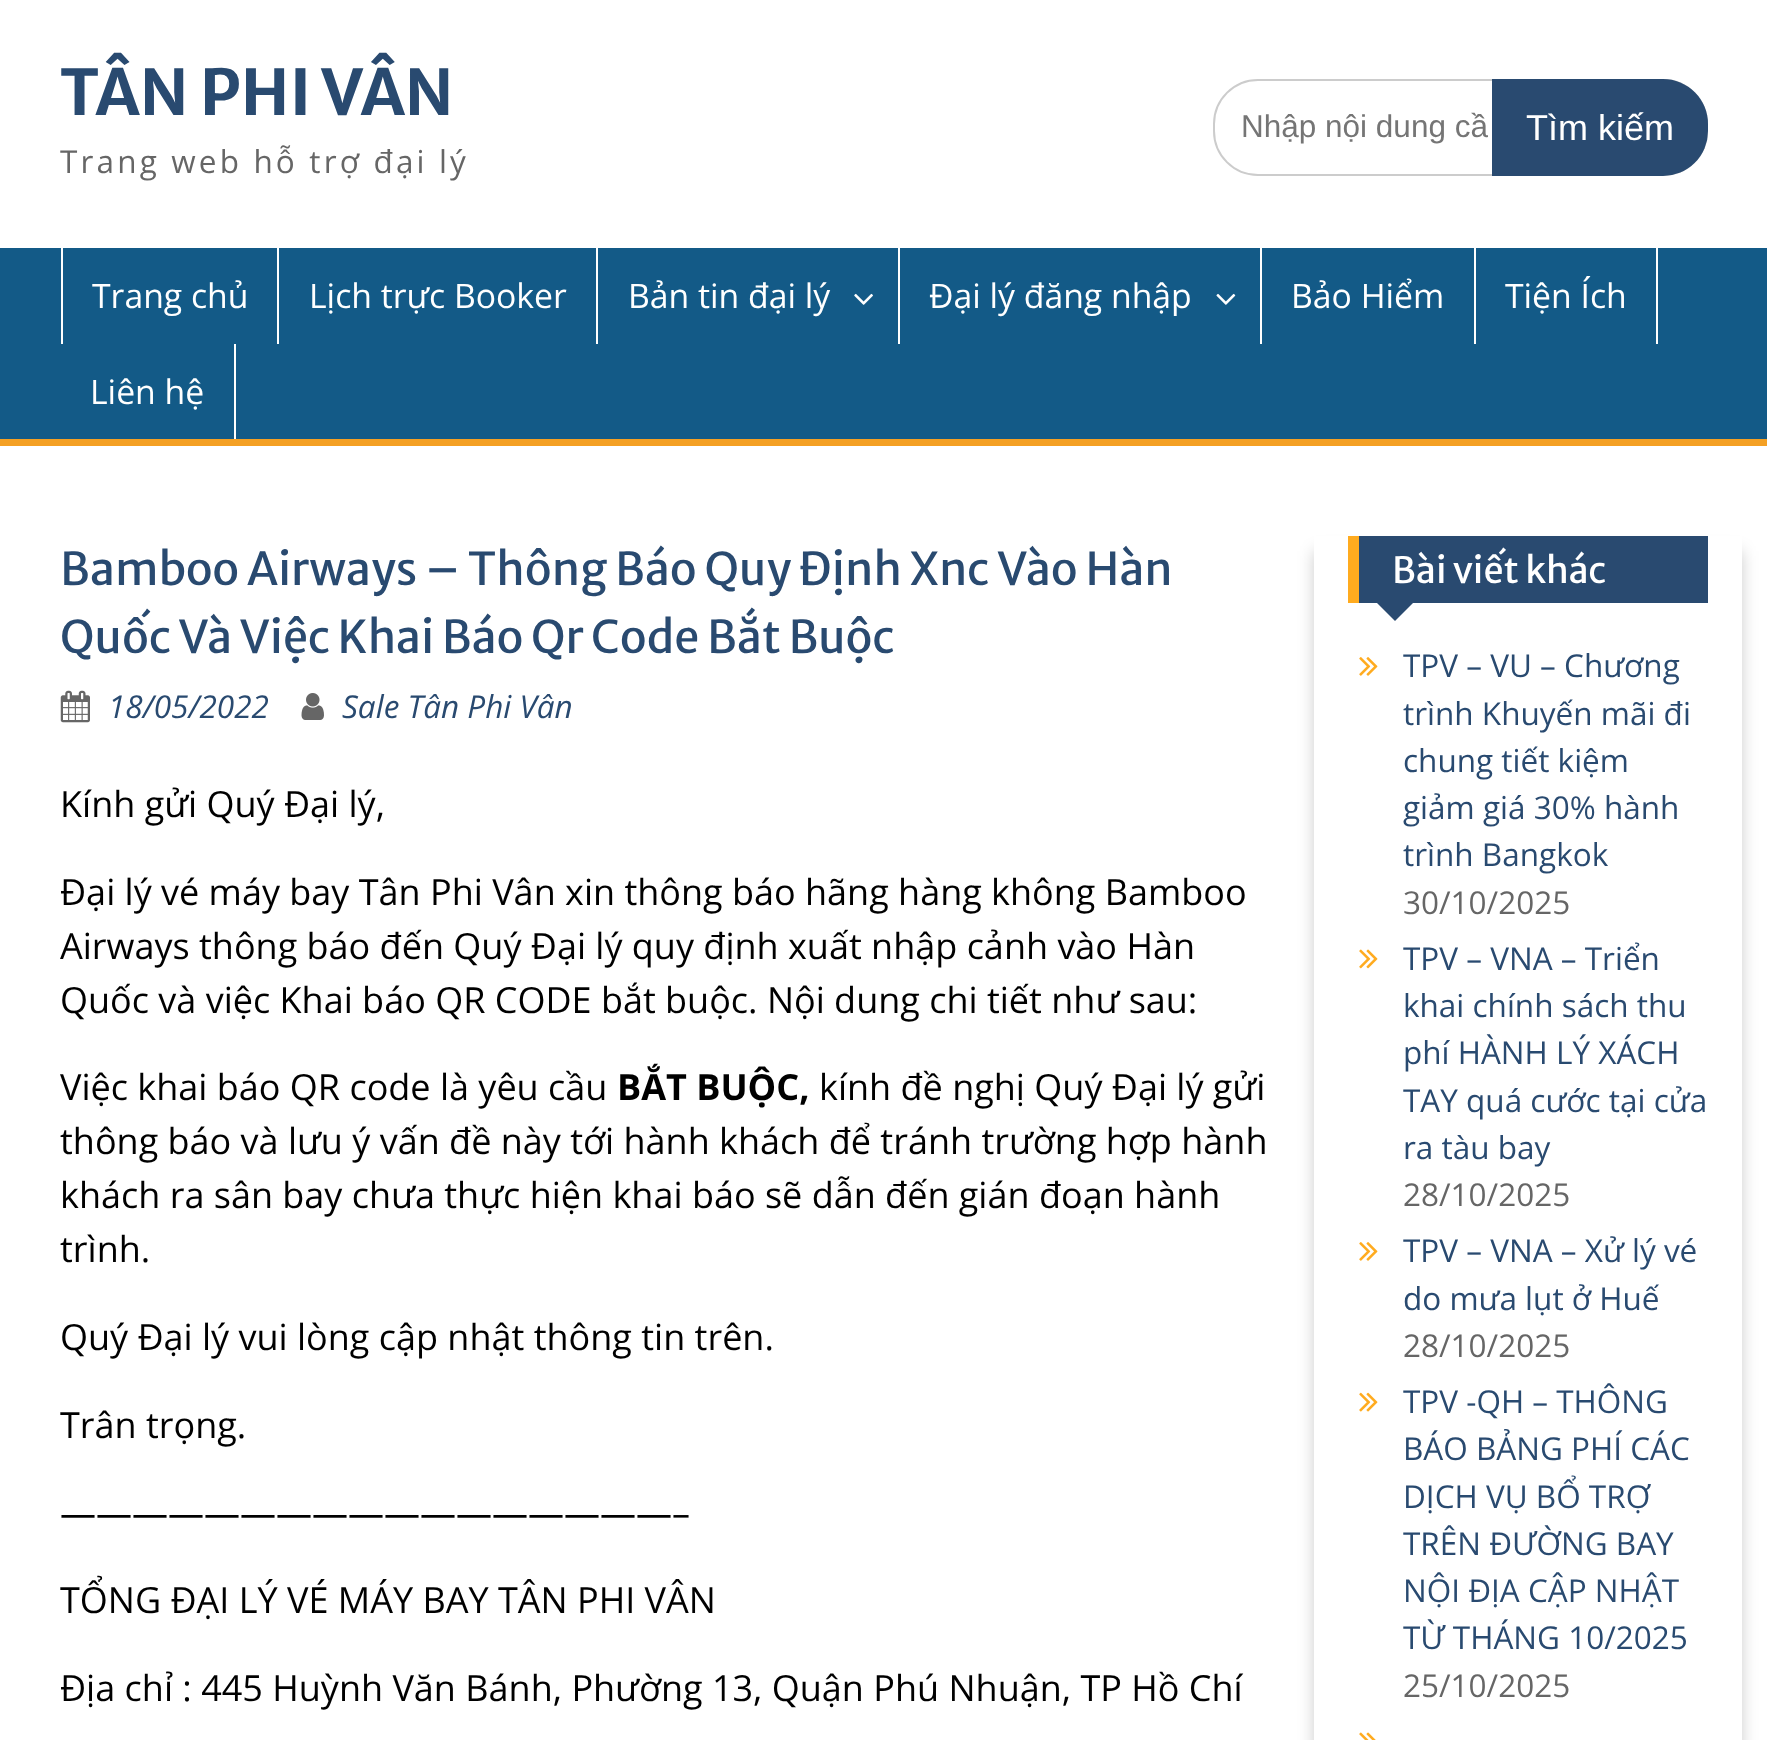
<!DOCTYPE html>
<meta charset="utf-8">
<style>body { margin: 0 } canvas { display: block }</style>
<canvas id="canvas" width="1767" height="1740"></canvas>
<script type="module">
  const canvas = document.getElementById("canvas");
  const ctx = canvas.getContext("2d");
  ctx.miterLimit = 4;
  ctx.fontKerning = "normal";
  async function loadImage(src) {
    const img = new Image();
    img.src = src;
    await img.decode();
    return img;
  }

  ctx.fillStyle = "#ffffff";
  ctx.fillRect(0, 0, 1767, 1740);
  ctx.font = "bold 63px Merriweather Sans";
  ctx.fillStyle = "#294a70";
  ctx.fillText("TÂN PHI VÂN", 60, 115);
  ctx.letterSpacing = "3.15px";
  ctx.font = "31.5px Open Sans";
  ctx.fillStyle = "#666666";
  ctx.fillText("Trang web hỗ trợ đại lý", 60, 173);
  ctx.beginPath();
  ctx.roundRect(1214, 80, 493, 95, 44);
  ctx.strokeStyle = "#cccccc";
  ctx.lineWidth = 2;
  ctx.stroke();
  ctx.letterSpacing = "0px";
  ctx.font = "31.5px Liberation Sans";
  ctx.fillStyle = "#757575";
  ctx.fillText("Nhập nội dung cầ", 1241, 137);
  ctx.fillStyle = "#294a70";
  ctx.beginPath();
  ctx.roundRect(1492, 79, 216, 97, [0, 45, 45, 0]);
  ctx.fill();
  ctx.font = "36px Liberation Sans";
  ctx.fillStyle = "#ffffff";
  ctx.fillText("Tìm kiếm", 1526, 140);
  ctx.fillStyle = "#135a87";
  ctx.fillRect(0, 248, 1767, 191);
  ctx.fillStyle = "#f4a024";
  ctx.fillRect(0, 439, 1767, 7);
  ctx.fillStyle = "#ffffff";
  ctx.fillRect(277, 248, 2, 96);
  ctx.fillRect(61, 248, 2, 96);
  ctx.font = "33.75px Open Sans";
  ctx.fillText("Trang chủ", 92, 308);
  ctx.fillRect(596, 248, 2, 96);
  ctx.fillText("Lịch trực Booker", 309, 308);
  ctx.fillRect(898, 248, 2, 96);
  ctx.fillText("Bản tin đại lý", 628, 308);
  ctx.drawImage(await loadImage("img1.png"), 854, 293, 19, 12);
  ctx.fillRect(1260, 248, 2, 96);
  ctx.fillText("Đại lý đăng nhập", 929, 308);
  ctx.drawImage(await loadImage("img2.png"), 1216, 293, 20, 12);
  ctx.fillRect(1474, 248, 2, 96);
  ctx.fillText("Bảo Hiểm", 1291, 308);
  ctx.fillRect(1656, 248, 2, 96);
  ctx.fillText("Tiện Ích", 1505, 308);
  ctx.fillRect(234, 344, 2, 95);
  ctx.fillText("Liên hệ", 90, 404);
  ctx.wordSpacing = "-0.25px";
  ctx.font = "45px Merriweather Sans";
  ctx.fillStyle = "#294a70";
  ctx.fillText("Bamboo Airways – Thông Báo Quy Định Xnc Vào Hàn", 60, 585);
  ctx.wordSpacing = "-0.5px";
  ctx.fillText("Quốc Và Việc Khai Báo Qr Code Bắt Buộc", 60, 653);
  ctx.drawImage(await loadImage("img3.png"), 60, 690, 30, 33);
  ctx.wordSpacing = "0px";
  ctx.font = "italic 31.5px Open Sans";
  ctx.fillText("18/05/2022", 108, 718);
  ctx.drawImage(await loadImage("img4.png"), 301, 693, 23, 27);
  ctx.fillText("Sale Tân Phi Vân", 342, 718);
  ctx.font = "36px Open Sans";
  ctx.fillStyle = "#000000";
  ctx.fillText("Kính gửi Quý Đại lý,", 60, 817);
  ctx.fillText("Đại lý vé máy bay Tân Phi Vân xin thông báo hãng hàng không Bamboo", 60, 905);
  ctx.fillText("Airways thông báo đến Quý Đại lý quy định xuất nhập cảnh vào Hàn", 60, 959);
  ctx.fillText("Quốc và việc Khai báo QR CODE bắt buộc. Nội dung chi tiết như sau:", 60, 1013);
  ctx.fillText("Việc khai báo QR code là yêu cầu", 60, 1100);
  ctx.font = "bold 36px Open Sans";
  ctx.fillText("BẮT BUỘC,", 617, 1100);
  ctx.font = "36px Open Sans";
  ctx.fillText("kính đề nghị Quý Đại lý gửi", 819, 1100);
  ctx.fillText("thông báo và lưu ý vấn đề này tới hành khách để tránh trường hợp hành", 60, 1154);
  ctx.fillText("khách ra sân bay chưa thực hiện khai báo sẽ dẫn đến gián đoạn hành", 60, 1208);
  ctx.fillText("trình.", 60, 1262);
  ctx.fillText("Quý Đại lý vui lòng cập nhật thông tin trên.", 60, 1350);
  ctx.fillText("Trân trọng.", 60, 1438);
  ctx.fillText("—————————————————–", 60, 1526);
  ctx.fillText("TỔNG ĐẠI LÝ VÉ MÁY BAY TÂN PHI VÂN", 60, 1613);
  ctx.fillText("Địa chỉ : 445 Huỳnh Văn Bánh, Phường 13, Quận Phú Nhuận, TP Hồ Chí", 60, 1701);
  ctx.save();
  ctx.beginPath();
  ctx.moveTo(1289, 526);
  ctx.lineTo(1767, 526);
  ctx.lineTo(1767, 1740);
  ctx.lineTo(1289, 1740);
  ctx.closePath();
  ctx.moveTo(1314, 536);
  ctx.lineTo(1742, 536);
  ctx.lineTo(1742, 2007);
  ctx.lineTo(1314, 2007);
  ctx.closePath();
  ctx.clip("evenodd");
  ctx.fillStyle = "rgba(0, 0, 0, 0.2)";
  ctx.filter = "blur(8px)";
  ctx.beginPath();
  ctx.rect(1314, 551, 428, 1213);
  ctx.fill();
  ctx.filter = "none";
  ctx.restore();
  ctx.fillStyle = "#294a70";
  ctx.fillRect(1359, 536, 349, 67);
  ctx.fillStyle = "#ffab1f";
  ctx.fillRect(1348, 536, 11, 67);
  ctx.font = "36px Merriweather Sans";
  ctx.fillStyle = "#ffffff";
  ctx.fillText("Bài viết khác", 1392, 583);
  ctx.fillStyle = "#294a70";
  ctx.beginPath();
  ctx.moveTo(1375, 601);
  ctx.lineTo(1415, 601);
  ctx.lineTo(1395, 621);
  ctx.closePath();
  ctx.fill();
  ctx.drawImage(await loadImage("img5.png"), 1359, 657, 19, 19);
  ctx.font = "31.5px Open Sans";
  ctx.fillText("TPV – VU – Chương", 1403, 677);
  ctx.fillText("trình Khuyến mãi đi", 1403, 725);
  ctx.fillText("chung tiết kiệm", 1403, 772);
  ctx.fillText("giảm giá 30% hành", 1403, 819);
  ctx.fillText("trình Bangkok", 1403, 866);
  ctx.fillStyle = "#666666";
  ctx.fillText("30/10/2025", 1403, 914);
  ctx.drawImage(await loadImage("img6.png"), 1359, 949, 19, 20);
  ctx.fillStyle = "#294a70";
  ctx.fillText("TPV – VNA – Triển", 1403, 970);
  ctx.fillText("khai chính sách thu", 1403, 1017);
  ctx.fillText("phí HÀNH LÝ XÁCH", 1403, 1064);
  ctx.fillText("TAY quá cước tại cửa", 1403, 1112);
  ctx.fillText("ra tàu bay", 1403, 1159);
  ctx.fillStyle = "#666666";
  ctx.fillText("28/10/2025", 1403, 1206);
  ctx.drawImage(await loadImage("img5.png"), 1359, 1242, 19, 19);
  ctx.fillStyle = "#294a70";
  ctx.fillText("TPV – VNA – Xử lý vé", 1403, 1262);
  ctx.fillText("do mưa lụt ở Huế", 1403, 1310);
  ctx.fillStyle = "#666666";
  ctx.fillText("28/10/2025", 1403, 1357);
  ctx.drawImage(await loadImage("img7.png"), 1359, 1392, 19, 20);
  ctx.fillStyle = "#294a70";
  ctx.fillText("TPV -QH – THÔNG", 1403, 1413);
  ctx.fillText("BÁO BẢNG PHÍ CÁC", 1403, 1460);
  ctx.fillText("DỊCH VỤ BỔ TRỢ", 1403, 1508);
  ctx.fillText("TRÊN ĐƯỜNG BAY", 1403, 1555);
  ctx.fillText("NỘI ĐỊA CẬP NHẬT", 1403, 1602);
  ctx.fillText("TỪ THÁNG 10/2025", 1403, 1649);
  ctx.fillStyle = "#666666";
  ctx.fillText("25/10/2025", 1403, 1697);
  ctx.drawImage(await loadImage("img8.png"), 1359, 1732, 17, 8);
</script>
